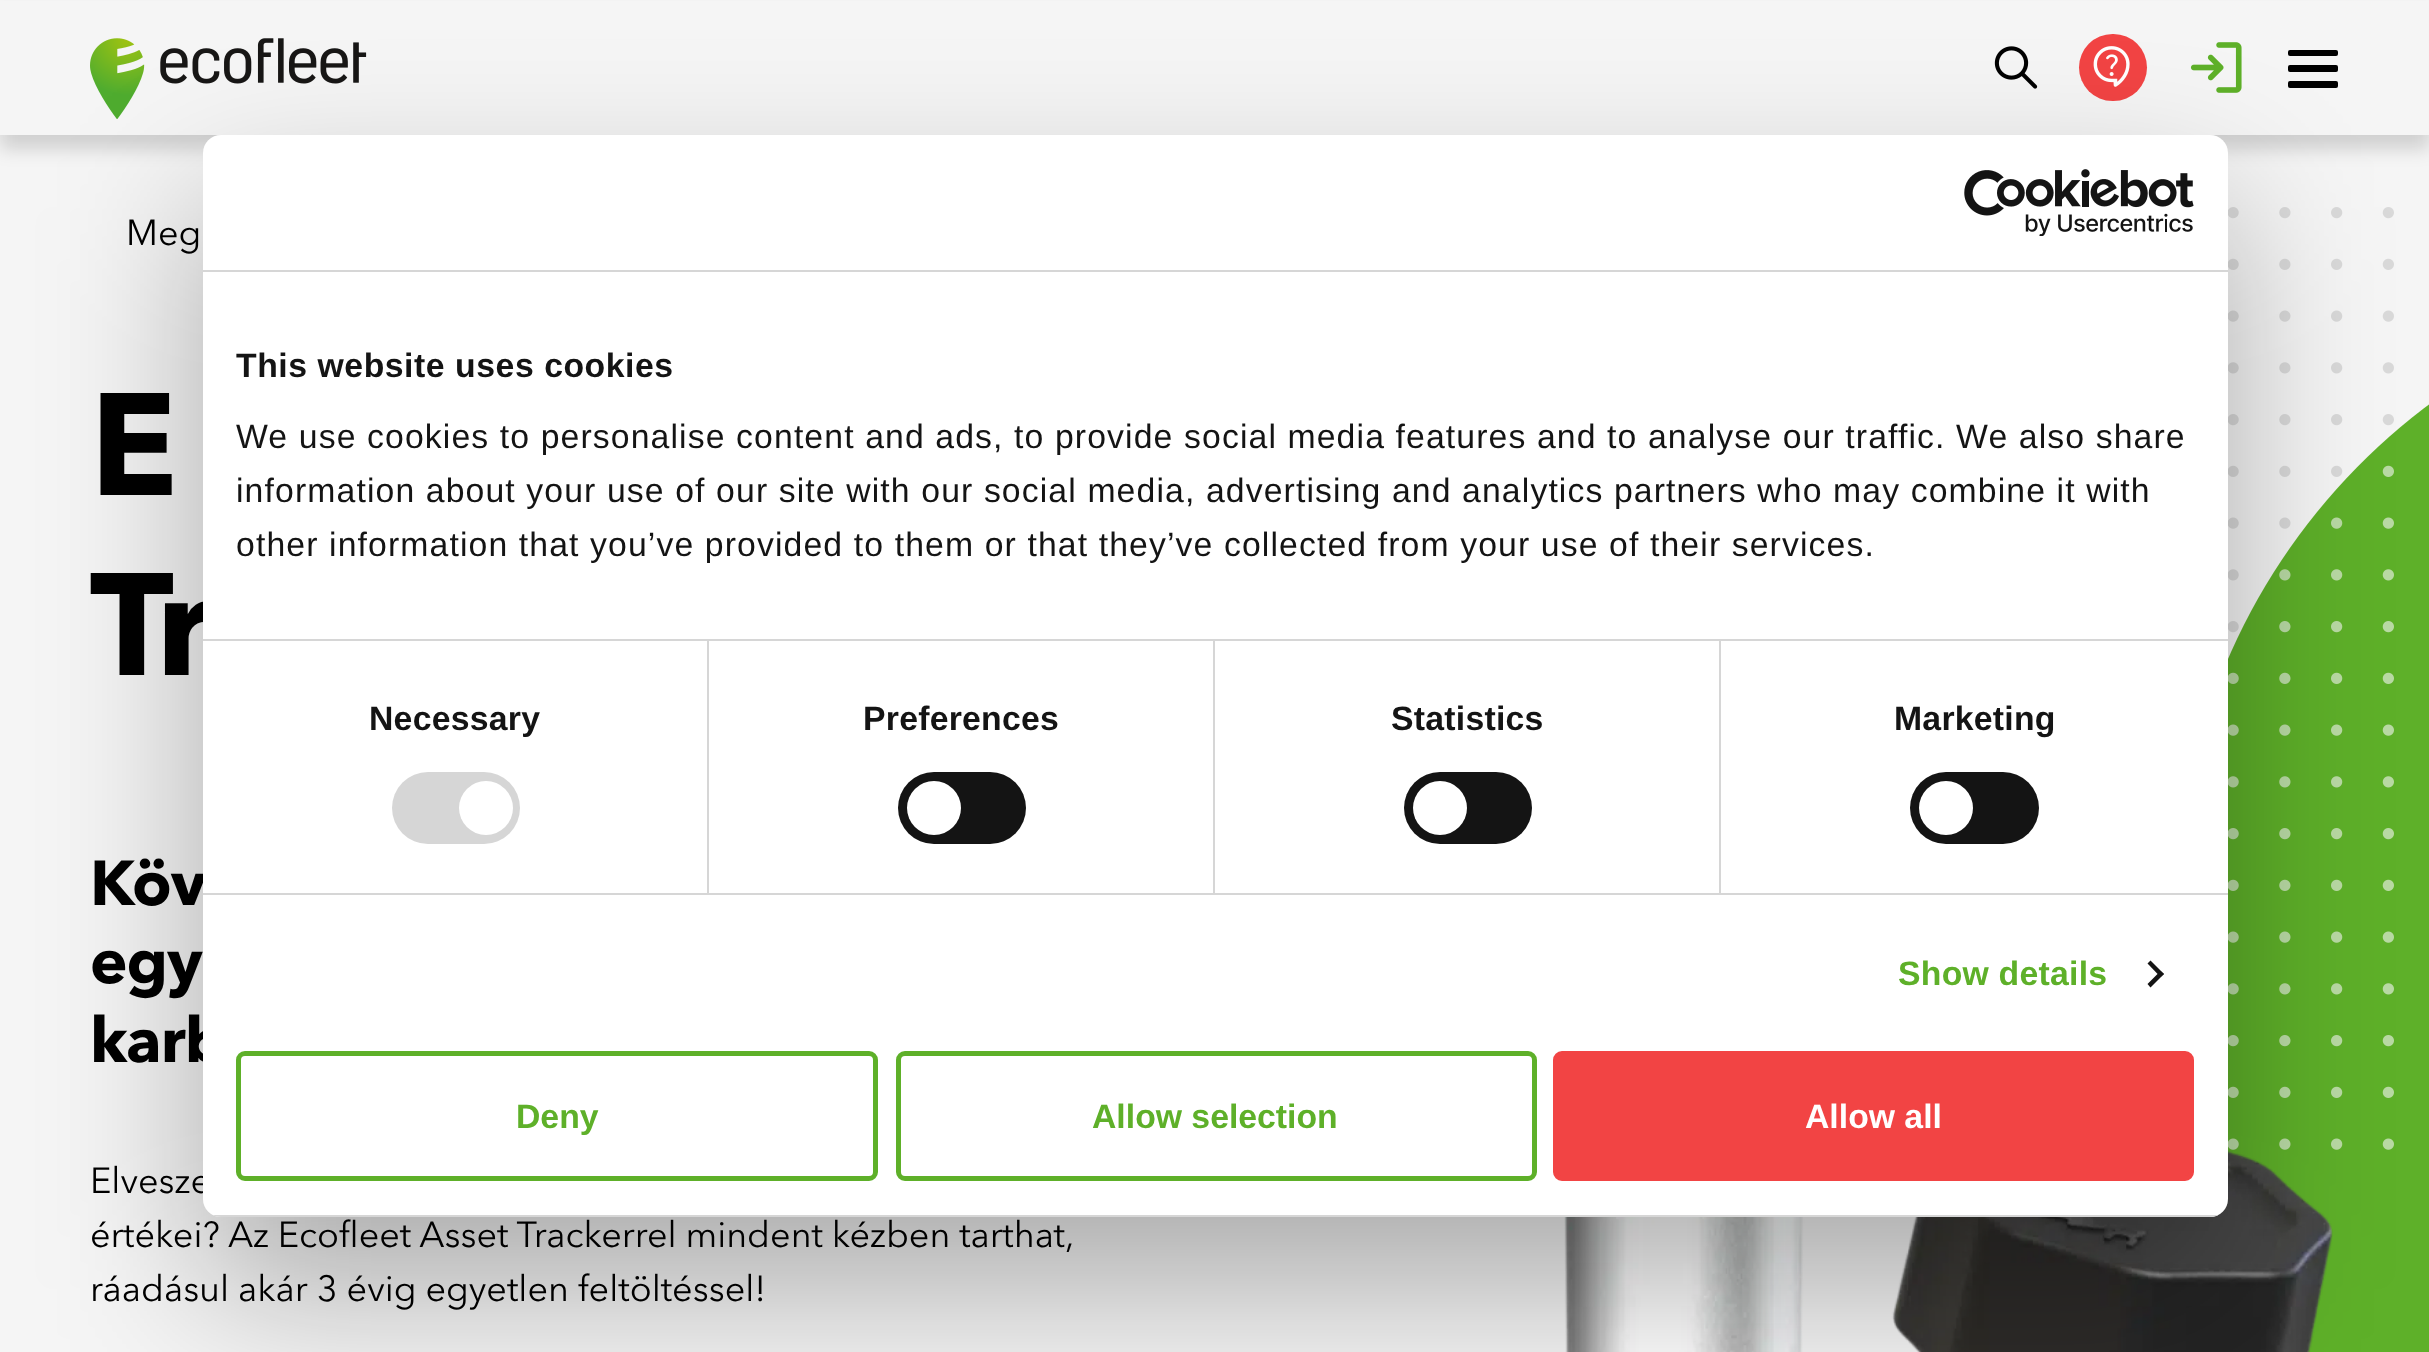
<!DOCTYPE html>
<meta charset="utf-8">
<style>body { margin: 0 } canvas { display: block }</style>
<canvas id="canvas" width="2429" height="1352"></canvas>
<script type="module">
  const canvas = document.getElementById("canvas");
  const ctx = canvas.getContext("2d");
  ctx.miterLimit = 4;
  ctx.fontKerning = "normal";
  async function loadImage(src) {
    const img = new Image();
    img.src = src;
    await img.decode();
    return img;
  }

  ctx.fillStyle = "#f5f5f5";
  ctx.fillRect(0, 0, 2429, 1352);
  ctx.fillStyle = "rgba(0, 0, 0, 0.15)";
  ctx.filter = "blur(9px)";
  ctx.beginPath();
  ctx.rect(0, 14, 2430, 135);
  ctx.fill();
  ctx.filter = "none";
  ctx.fillStyle = "#f5f5f5";
  ctx.fillRect(0, 1, 2429, 134);
  ctx.drawImage(await loadImage("img1.png"), 90, 38, 277, 81);
  ctx.drawImage(await loadImage("img2.png"), 1994, 46, 44, 43);
  ctx.fillStyle = "#f24444";
  ctx.beginPath();
  ctx.roundRect(2079, 34, 68, 67, 33.5);
  ctx.fill();
  ctx.drawImage(await loadImage("img3.png"), 2093, 46, 37, 41);
  ctx.drawImage(await loadImage("img4.png"), 2190, 42, 52, 51);
  ctx.fillStyle = "#000000";
  ctx.beginPath();
  ctx.roundRect(2288, 50, 50, 6, 2);
  ctx.fill();
  ctx.beginPath();
  ctx.roundRect(2288, 65, 50, 7, 2);
  ctx.fill();
  ctx.beginPath();
  ctx.roundRect(2288, 81, 50, 7, 2);
  ctx.fill();
  ctx.font = "36px Avenir Next";
  ctx.fillText("Meg", 126, 245);
  ctx.drawImage(await loadImage("img5.png"), 2228, 207, 201, 1145);
  ctx.letterSpacing = "-5px";
  ctx.font = "bold 144px Avenir Next";
  ctx.fillText("E", 90, 495);
  ctx.fillText("Tr", 90, 675);
  ctx.letterSpacing = "-1px";
  ctx.font = "bold 63px Avenir Next";
  ctx.fillText("Köv", 90, 905);
  ctx.wordSpacing = "-1px";
  ctx.fillText("egy", 90, 983);
  ctx.wordSpacing = "0px";
  ctx.fillText("karb", 90, 1062);
  ctx.letterSpacing = "0px";
  ctx.font = "36px Avenir Next";
  ctx.fillText("Elvesze", 90, 1193);
  ctx.wordSpacing = "-0.25px";
  ctx.fillText("értékei? Az Ecofleet Asset Trackerrel mindent kézben tarthat,", 90, 1247);
  ctx.wordSpacing = "0px";
  ctx.fillText("ráadásul akár 3 évig egyetlen feltöltéssel!", 90, 1301);
  ctx.drawImage(await loadImage("img6.png"), 1564, 1150, 769, 202);
  ctx.fillStyle = "rgba(0, 0, 0, 0.3)";
  ctx.filter = "blur(76.5px)";
  ctx.beginPath();
  ctx.roundRect(203, 207, 2025, 1082, 18);
  ctx.fill();
  ctx.filter = "none";
  ctx.fillStyle = "#ffffff";
  ctx.beginPath();
  ctx.roundRect(203, 135, 2025, 1082, 18);
  ctx.fill();
  ctx.fillStyle = "#d6d6d6";
  ctx.fillRect(203, 270, 2025, 2);
  ctx.drawImage(await loadImage("img7.png"), 1964, 169, 230, 67);
  ctx.fillRect(203, 639, 2025, 2);
  ctx.letterSpacing = "0.55px";
  ctx.font = "bold 33.75px Liberation Sans";
  ctx.fillStyle = "#141414";
  ctx.fillText("This website uses cookies", 236, 377);
  ctx.letterSpacing = "1.12px";
  ctx.font = "33.75px Liberation Sans";
  ctx.fillText("We use cookies to personalise content and ads, to provide social media features and to analyse our traffic. We also share", 236, 448);
  ctx.fillText("information about your use of our site with our social media, advertising and analytics partners who may combine it with", 236, 502);
  ctx.fillText("other information that you’ve provided to them or that they’ve collected from your use of their services.", 236, 556);
  ctx.fillStyle = "#d6d6d6";
  ctx.fillRect(203, 893, 2025, 2);
  ctx.fillRect(707, 641, 2, 252);
  ctx.letterSpacing = "0.25px";
  ctx.font = "bold 33.75px Liberation Sans";
  ctx.fillStyle = "#141414";
  ctx.fillText("Necessary", 369, 730);
  ctx.fillStyle = "#d6d6d6";
  ctx.beginPath();
  ctx.roundRect(392, 772, 128, 72, 36);
  ctx.fill();
  ctx.fillStyle = "#ffffff";
  ctx.beginPath();
  ctx.arc(486, 808, 27, 0, Math.PI * 2);
  ctx.fill();
  ctx.fillStyle = "#d6d6d6";
  ctx.fillRect(1213, 641, 2, 252);
  ctx.fillStyle = "#141414";
  ctx.fillText("Preferences", 863, 730);
  ctx.beginPath();
  ctx.roundRect(898, 772, 128, 72, 36);
  ctx.fill();
  ctx.fillStyle = "#ffffff";
  ctx.beginPath();
  ctx.arc(934, 808, 27, 0, Math.PI * 2);
  ctx.fill();
  ctx.fillStyle = "#d6d6d6";
  ctx.fillRect(1719, 641, 2, 252);
  ctx.fillStyle = "#141414";
  ctx.fillText("Statistics", 1391, 730);
  ctx.beginPath();
  ctx.roundRect(1404, 772, 128, 72, 36);
  ctx.fill();
  ctx.fillStyle = "#ffffff";
  ctx.beginPath();
  ctx.arc(1440, 808, 27, 0, Math.PI * 2);
  ctx.fill();
  ctx.fillStyle = "#141414";
  ctx.fillText("Marketing", 1894, 730);
  ctx.beginPath();
  ctx.roundRect(1910, 772, 129, 72, 36);
  ctx.fill();
  ctx.fillStyle = "#ffffff";
  ctx.beginPath();
  ctx.arc(1946, 808, 27, 0, Math.PI * 2);
  ctx.fill();
  ctx.fillStyle = "#5eb029";
  ctx.fillText("Show details", 1898, 985);
  ctx.fillStyle = "#141414";
  ctx.beginPath();
  ctx.moveTo(2150.5, 960.5);
  ctx.lineTo(2164, 974);
  ctx.lineTo(2160.5, 977);
  ctx.lineTo(2147.5, 963.5);
  ctx.closePath();
  ctx.fill();
  ctx.beginPath();
  ctx.moveTo(2160.5, 971);
  ctx.lineTo(2164, 974);
  ctx.lineTo(2150.5, 987.5);
  ctx.lineTo(2147.5, 984);
  ctx.closePath();
  ctx.fill();
  ctx.save();
  ctx.beginPath();
  ctx.roundRect(203, 135, 2025, 1082, 18);
  ctx.clip();
  ctx.fillStyle = "#d6d6d6";
  ctx.fillRect(213, 1215, 2005, 2);
  ctx.restore();
  ctx.beginPath();
  ctx.roundRect(238.5, 1053.5, 637, 125, 6.5);
  ctx.strokeStyle = "#5eb029";
  ctx.lineWidth = 5;
  ctx.stroke();
  ctx.letterSpacing = "0px";
  ctx.fillStyle = "#5eb029";
  ctx.fillText("Deny", 516, 1128);
  ctx.beginPath();
  ctx.roundRect(898.5, 1053.5, 636, 125, 6.5);
  ctx.stroke();
  ctx.fillText("Allow selection", 1092, 1128);
  ctx.fillStyle = "#f24444";
  ctx.beginPath();
  ctx.roundRect(1555.5, 1053.5, 636, 125, 6.5);
  ctx.fill();
  ctx.strokeStyle = "#f24444";
  ctx.stroke();
  ctx.fillStyle = "#ffffff";
  ctx.fillText("Allow all", 1805, 1128);
</script>
